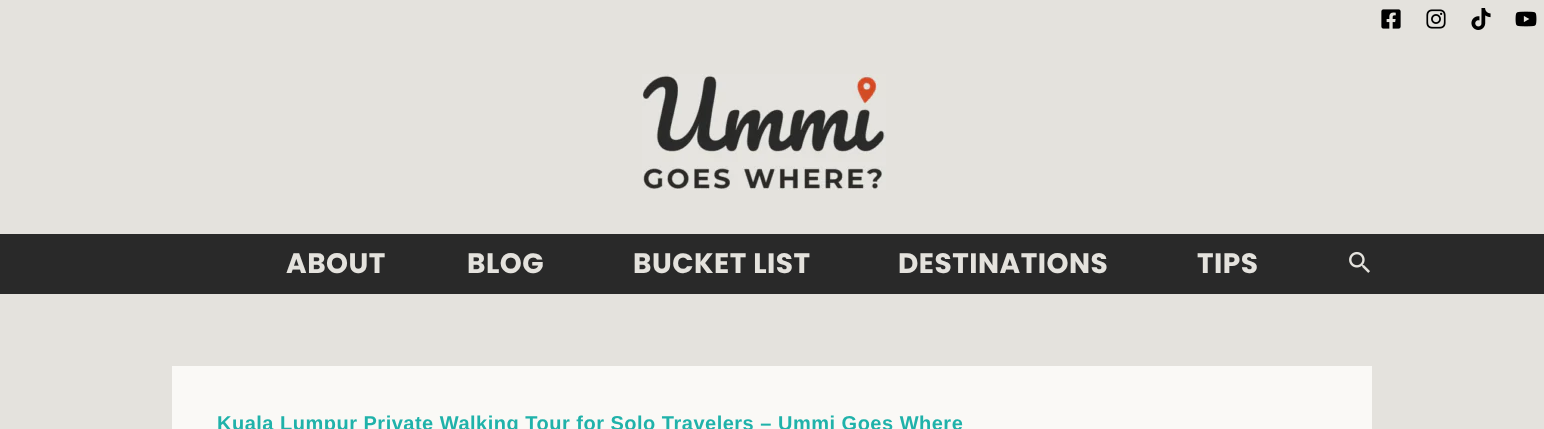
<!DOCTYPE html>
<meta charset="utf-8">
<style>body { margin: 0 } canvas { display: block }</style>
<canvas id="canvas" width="1544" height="429"></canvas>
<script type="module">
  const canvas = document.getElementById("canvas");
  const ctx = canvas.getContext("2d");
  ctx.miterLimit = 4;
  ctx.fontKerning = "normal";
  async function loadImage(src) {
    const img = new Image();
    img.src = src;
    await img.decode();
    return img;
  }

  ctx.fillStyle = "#e4e2dd";
  ctx.fillRect(0, 0, 1544, 429);
  ctx.drawImage(await loadImage("img1.png"), 1381, 9, 20, 20);
  ctx.drawImage(await loadImage("img2.png"), 1426, 9, 20, 20);
  ctx.drawImage(await loadImage("img3.png"), 1471, 8, 20, 22);
  ctx.drawImage(await loadImage("img4.png"), 1515, 11, 22, 16);
  ctx.drawImage(await loadImage("img5.png"), 642, 74, 244, 116);
  ctx.fillStyle = "#292929";
  ctx.fillRect(0, 234, 1544, 60);
  ctx.letterSpacing = "0.5px";
  ctx.font = "bold 28px Poppins";
  ctx.fillStyle = "#e4e2dd";
  ctx.fillText("ABOUT", 286, 273);
  ctx.fillText("BLOG", 467, 273);
  ctx.fillText("BUCKET LIST", 633, 273);
  ctx.fillText("DESTINATIONS", 898, 273);
  ctx.fillText("TIPS", 1197, 273);
  ctx.drawImage(await loadImage("img6.png"), 1349, 251, 21, 22);
  ctx.fillStyle = "#faf9f6";
  ctx.fillRect(172, 366, 1200, 63);
  ctx.font = "bold 20px Liberation Sans";
  ctx.fillStyle = "#20b2aa";
  ctx.fillText("Kuala Lumpur Private Walking Tour for Solo Travelers – Ummi Goes Where", 217, 430);
</script>
